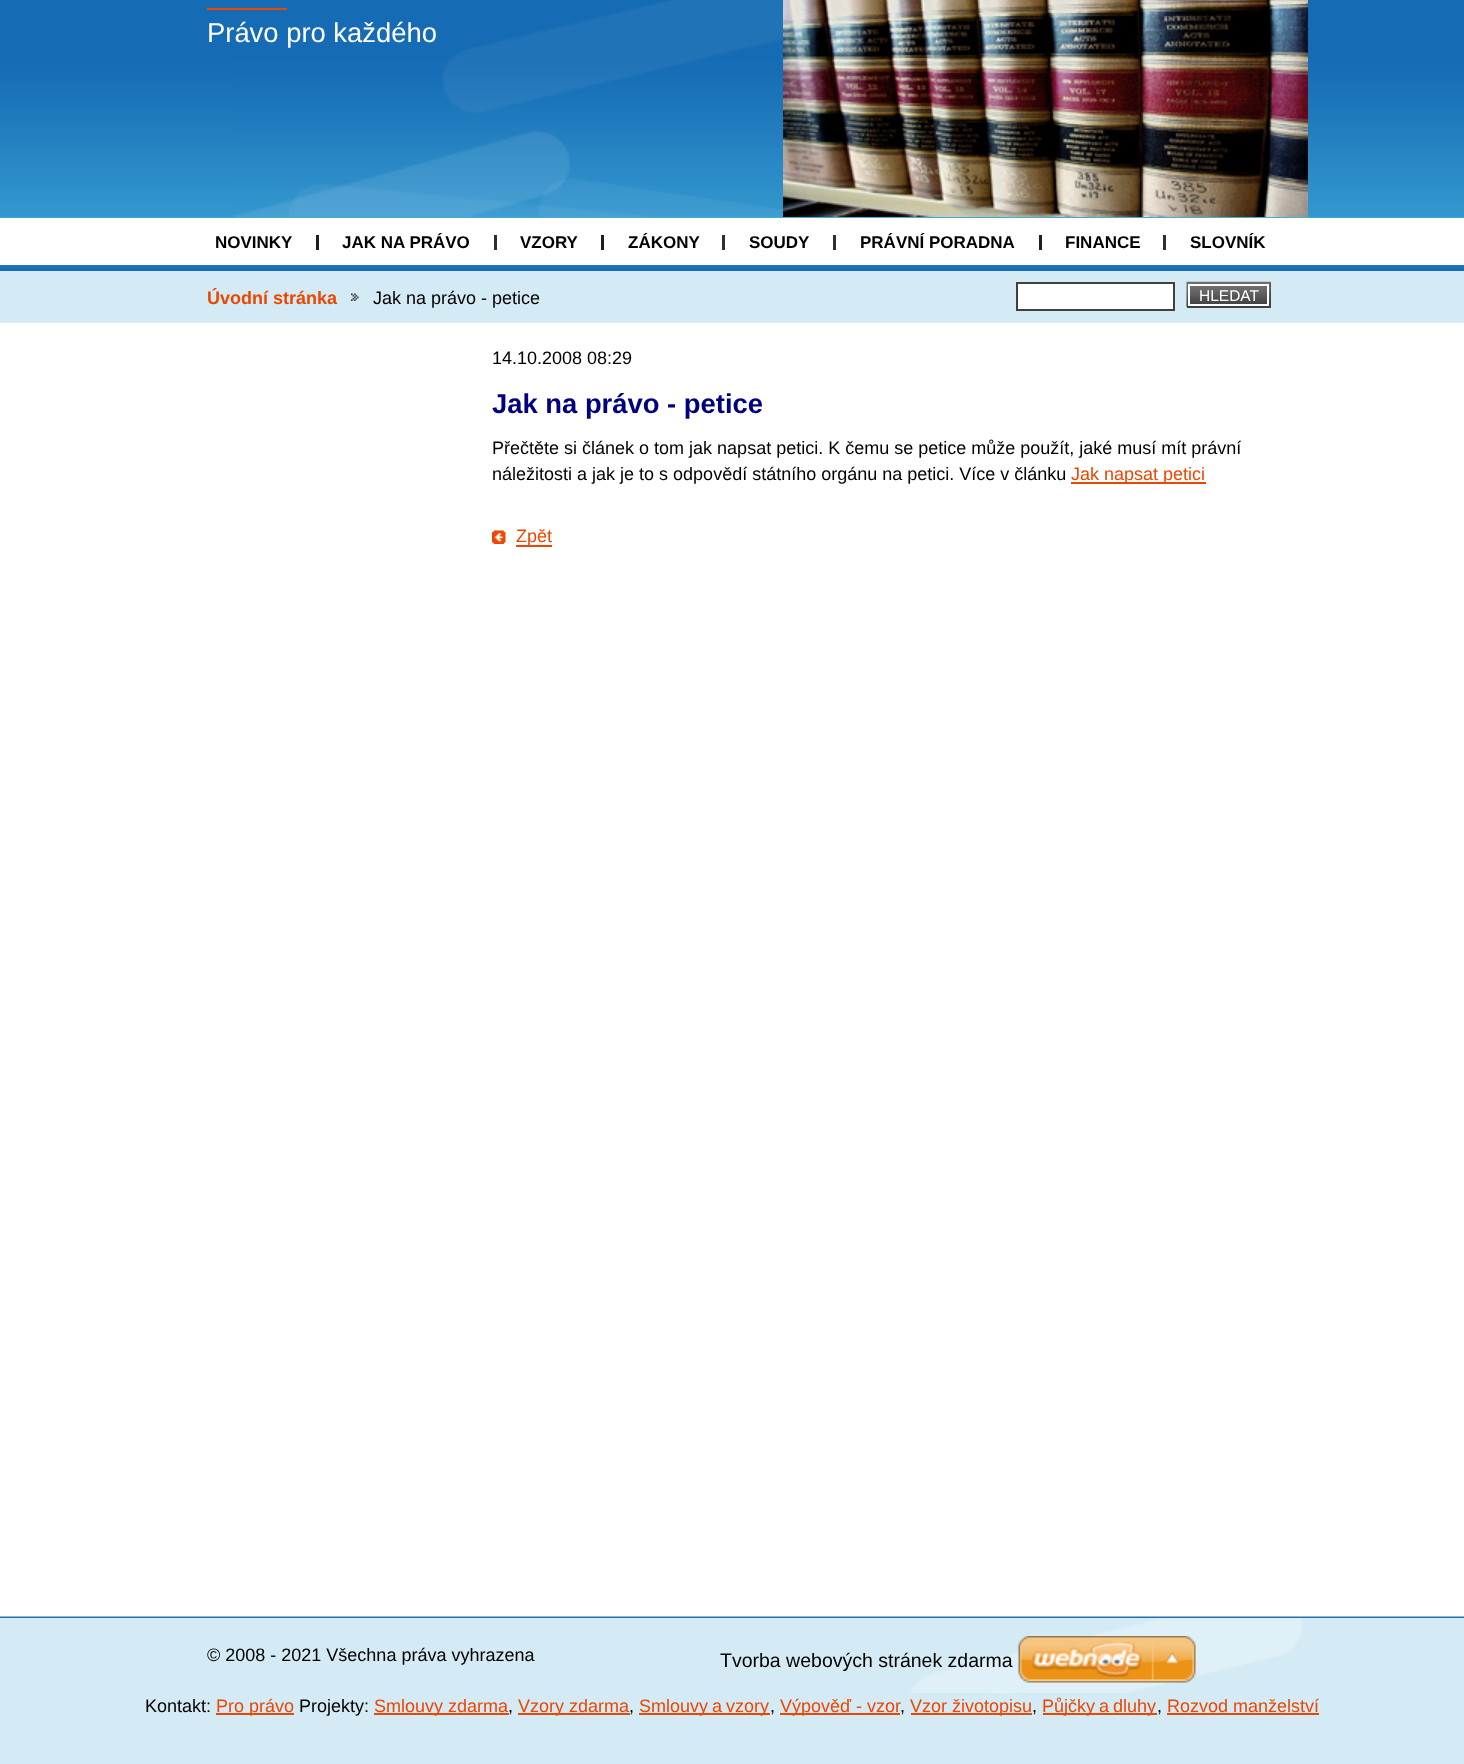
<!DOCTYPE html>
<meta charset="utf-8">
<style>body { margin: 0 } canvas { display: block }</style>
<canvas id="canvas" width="1464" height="1764"></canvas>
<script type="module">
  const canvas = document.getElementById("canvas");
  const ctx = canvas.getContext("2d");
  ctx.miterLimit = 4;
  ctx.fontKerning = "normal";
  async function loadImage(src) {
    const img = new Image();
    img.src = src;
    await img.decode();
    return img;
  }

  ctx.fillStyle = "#d4eaf5";
  ctx.fillRect(0, 0, 1464, 1764);
  ctx.fillStyle = "#ffffff";
  ctx.fillRect(0, 218, 1464, 1399);
  ctx.fillStyle = "#42abda";
  ctx.fillRect(0, 217, 1464, 1);
  ctx.drawImage(await loadImage("img1.png"), 0, 0, 1464, 217);
  ctx.drawImage(await loadImage("img2.png"), 233, 0, 550, 217);
  ctx.fillStyle = "#ec4700";
  ctx.fillRect(207, 8, 80, 2);
  ctx.font = "27.4px Liberation Sans";
  ctx.fillStyle = "#ffffff";
  ctx.fillText("Právo pro každého", 207, 42);
  ctx.drawImage(await loadImage("img3.png"), 783, 0, 525, 217);
  ctx.font = "bold 17px Liberation Sans";
  ctx.fillStyle = "#000000";
  ctx.fillText("NOVINKY", 215, 248);
  ctx.fillStyle = "#1f1f1f";
  ctx.fillRect(316, 235, 3, 15);
  ctx.fillStyle = "#000000";
  ctx.fillText("JAK NA PRÁVO", 342, 248);
  ctx.fillStyle = "#2f2f2f";
  ctx.fillRect(494, 235, 3, 15);
  ctx.fillStyle = "#000000";
  ctx.fillText("VZORY", 520, 248);
  ctx.fillStyle = "#1f1f1f";
  ctx.fillRect(601, 235, 3, 15);
  ctx.fillStyle = "#000000";
  ctx.fillText("ZÁKONY", 628, 248);
  ctx.fillStyle = "#2f2f2f";
  ctx.fillRect(722, 235, 3, 15);
  ctx.fillStyle = "#000000";
  ctx.fillText("SOUDY", 749, 248);
  ctx.fillStyle = "#2f2f2f";
  ctx.fillRect(833, 235, 3, 15);
  ctx.fillStyle = "#000000";
  ctx.fillText("PRÁVNÍ PORADNA", 860, 248);
  ctx.fillStyle = "#1f1f1f";
  ctx.fillRect(1039, 235, 3, 15);
  ctx.fillStyle = "#000000";
  ctx.fillText("FINANCE", 1065, 248);
  ctx.fillStyle = "#2f2f2f";
  ctx.fillRect(1163, 235, 3, 15);
  ctx.fillStyle = "#000000";
  ctx.fillText("SLOVNÍK", 1190, 248);
  ctx.fillStyle = "#d4eaf5";
  ctx.fillRect(0, 271, 1464, 52);
  ctx.drawImage(await loadImage("img4.png"), 0, 265, 1464, 6);
  ctx.font = "bold 18px Liberation Sans";
  ctx.fillStyle = "#ec4700";
  ctx.fillText("Úvodní stránka", 207, 304);
  ctx.drawImage(await loadImage("img5.png"), 351, 293, 8, 8);
  ctx.font = "18px Liberation Sans";
  ctx.fillStyle = "#000000";
  ctx.fillText("Jak na právo - petice", 373, 304);
  ctx.fillStyle = "#ffffff";
  ctx.beginPath();
  ctx.rect(1017, 283, 157, 27);
  ctx.fill();
  ctx.strokeStyle = "#404040";
  ctx.lineWidth = 2;
  ctx.stroke();
  ctx.fillStyle = "#404040";
  ctx.fillRect(1187, 282, 84, 26);
  ctx.drawImage(await loadImage("img6.png"), 1186, 281, 85, 26);
  ctx.drawImage(await loadImage("img7.png"), 1190, 286, 77, 18);
  ctx.strokeStyle = "#ffffff";
  ctx.strokeRect(1189, 285, 79, 20);
  ctx.font = "15.5px Liberation Sans";
  ctx.fillStyle = "#ffffff";
  ctx.fillText("HLEDAT", 1199, 301);
  ctx.font = "18px Liberation Sans";
  ctx.fillStyle = "#000000";
  ctx.fillText("14.10.2008 08:29", 492, 364);
  ctx.font = "bold 27.4px Liberation Sans";
  ctx.fillStyle = "#000080";
  ctx.fillText("Jak na právo - petice", 492, 413);
  ctx.font = "18px Liberation Sans";
  ctx.fillStyle = "#000000";
  ctx.fillText("Přečtěte si článek o tom jak napsat petici. K čemu se petice může použít, jaké musí mít právní", 492, 454);
  ctx.fillText("náležitosti a jak je to s odpovědí státního orgánu na petici. Více v článku", 492, 480);
  ctx.fillStyle = "#ec4700";
  ctx.fillRect(1071, 482, 135, 2);
  ctx.fillText("Jak napsat petici", 1071, 480);
  ctx.drawImage(await loadImage("img8.png"), 492, 530, 14, 14);
  ctx.fillRect(516, 545, 36, 2);
  ctx.fillText("Zpět", 516, 542);
  ctx.drawImage(await loadImage("img9.png"), 0, 1616, 1464, 2);
  ctx.drawImage(await loadImage("img10.png"), 910, 1618, 392, 75);
  ctx.fillStyle = "#000000";
  ctx.fillText("© 2008 - 2021 Všechna práva vyhrazena", 207, 1661);
  ctx.font = "19.5px Liberation Sans";
  ctx.fillText("Tvorba webových stránek zdarma", 720, 1667);
  ctx.drawImage(await loadImage("img11.png"), 1018, 1636, 178, 47);
  ctx.font = "18px Liberation Sans";
  ctx.fillText("Kontakt:", 145, 1712);
  ctx.fillStyle = "#ec4700";
  ctx.fillRect(216, 1713, 78, 2);
  ctx.fillText("Pro právo", 216, 1712);
  ctx.fillStyle = "#000000";
  ctx.fillText("Projekty:", 299, 1712);
  ctx.fillStyle = "#ec4700";
  ctx.fillRect(374, 1713, 135, 2);
  ctx.fillText("Smlouvy zdarma", 374, 1712);
  ctx.fillStyle = "#000000";
  ctx.fillText(",", 508, 1712);
  ctx.fillStyle = "#ec4700";
  ctx.fillRect(518, 1713, 112, 2);
  ctx.fillText("Vzory zdarma", 518, 1712);
  ctx.fillStyle = "#000000";
  ctx.fillText(",", 629, 1712);
  ctx.fillStyle = "#ec4700";
  ctx.fillRect(639, 1713, 131, 2);
  ctx.wordSpacing = "-1px";
  ctx.fillText("Smlouvy a vzory", 639, 1712);
  ctx.wordSpacing = "0px";
  ctx.fillStyle = "#000000";
  ctx.fillText(",", 770, 1712);
  ctx.fillStyle = "#ec4700";
  ctx.fillRect(780, 1713, 120, 2);
  ctx.fillText("Výpověď - vzor", 780, 1712);
  ctx.fillStyle = "#000000";
  ctx.fillText(",", 900, 1712);
  ctx.fillStyle = "#ec4700";
  ctx.fillRect(911, 1713, 121, 2);
  ctx.fillText("Vzor životopisu", 910, 1712);
  ctx.fillStyle = "#000000";
  ctx.fillText(",", 1032, 1712);
  ctx.fillStyle = "#ec4700";
  ctx.fillRect(1043, 1713, 114, 2);
  ctx.wordSpacing = "-1px";
  ctx.fillText("Půjčky a dluhy", 1042, 1712);
  ctx.wordSpacing = "0px";
  ctx.fillStyle = "#000000";
  ctx.fillText(",", 1157, 1712);
  ctx.fillStyle = "#ec4700";
  ctx.fillText("Rozvod manželství", 1167, 1712);
  ctx.fillRect(1167, 1713, 152, 2);
</script>
